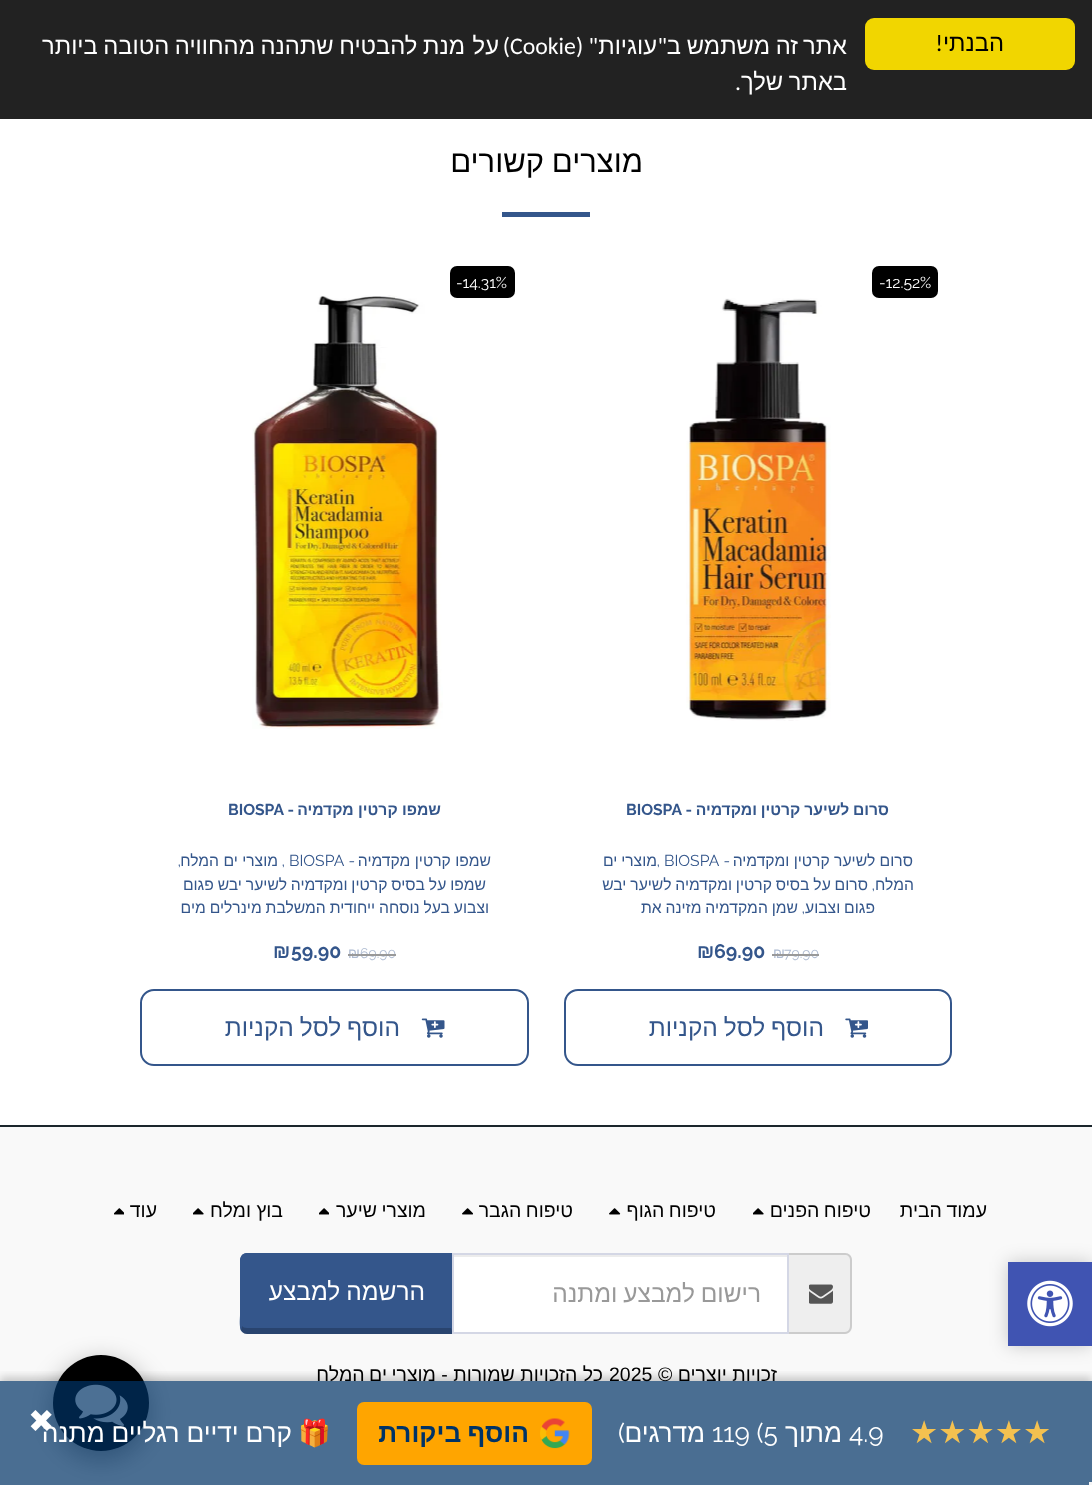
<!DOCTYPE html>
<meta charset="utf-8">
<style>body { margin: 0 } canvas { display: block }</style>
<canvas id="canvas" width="1092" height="1485"></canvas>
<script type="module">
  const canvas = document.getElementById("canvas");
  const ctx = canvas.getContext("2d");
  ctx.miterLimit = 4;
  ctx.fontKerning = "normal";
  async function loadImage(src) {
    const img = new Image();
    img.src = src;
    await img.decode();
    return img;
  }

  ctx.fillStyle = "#f9f9f9";
  ctx.fillRect(0, 0, 1092, 1485);
  ctx.fillStyle = "#222222";
  ctx.fillRect(0, 0, 1092, 119);
  ctx.fillStyle = "#f1d600";
  ctx.beginPath();
  ctx.roundRect(865, 18, 210, 52, 9);
  ctx.fill();
  ctx.direction = "rtl";
  ctx.font = "23.75px Liberation Sans";
  ctx.fillStyle = "#000000";
  ctx.fillText("הבנתי", 1004, 51);
  ctx.font = "23.75px Carlito";
  ctx.fillText("!", 943, 51);
  ctx.font = "23.75px Liberation Sans";
  ctx.fillStyle = "#ffffff";
  ctx.fillText("אתר", 847, 54);
  ctx.fillText("זה", 798, 54);
  ctx.fillText("משתמש", 770, 54);
  ctx.fillText("ב", 681, 54);
  ctx.font = "23.75px Carlito";
  ctx.fillText("\"", 667, 54);
  ctx.font = "23.75px Liberation Sans";
  ctx.fillText("עוגיות", 657, 54);
  ctx.font = "23.75px Carlito";
  ctx.fillText("\" (", 598, 54);
  ctx.direction = "ltr";
  ctx.fillText("Cookie", 510, 54);
  ctx.direction = "rtl";
  ctx.fillText(")", 510, 54);
  ctx.font = "23.75px Liberation Sans";
  ctx.fillText("על", 499, 54);
  ctx.wordSpacing = "-1px";
  ctx.fillText("מנת להבטיח שתהנה מהחוויה הטובה ביותר", 465, 54);
  ctx.fillText("באתר שלך", 847, 90);
  ctx.wordSpacing = "0px";
  ctx.font = "23.75px Carlito";
  ctx.fillText(".", 741, 90);
  ctx.fillRect(0, 119, 1092, 1006);
  ctx.wordSpacing = "-1px";
  ctx.font = "31px Liberation Sans";
  ctx.fillStyle = "#000000";
  ctx.fillText("מוצרים קשורים", 643, 172);
  ctx.fillStyle = "#34568b";
  ctx.fillRect(502, 212, 88, 5);
  ctx.fillStyle = "#000000";
  ctx.beginPath();
  ctx.roundRect(872, 266, 66, 32, 7);
  ctx.fill();
  ctx.wordSpacing = "0px";
  ctx.direction = "ltr";
  ctx.font = "15.7px Raleway";
  ctx.fillStyle = "#ffffff";
  ctx.fillText("-12.52%", 879, 288);
  ctx.drawImage(await loadImage("img1.png"), 686, 298, 145, 423);
  ctx.save();
  ctx.beginPath();
  ctx.rect(627, 798, 262, 25);
  ctx.clip();
  ctx.wordSpacing = "-0.5px";
  ctx.direction = "rtl";
  ctx.font = "bold 15.7px Liberation Sans";
  ctx.fillStyle = "#34568b";
  ctx.fillText("סרום לשיער קרטין ומקדמיה", 889, 815);
  ctx.restore();
  ctx.direction = "rtl";
  ctx.font = "bold 15.7px Raleway";
  ctx.fillStyle = "#34568b";
  ctx.fillText("-", 692, 815);
  ctx.direction = "ltr";
  ctx.fillText("BIOSPA", 626, 815);
  ctx.direction = "rtl";
  ctx.font = "15.7px Liberation Sans";
  ctx.fillText("סרום לשיער קרטין ומקדמיה", 913, 866);
  ctx.font = "15.7px Raleway";
  ctx.fillText("-", 730, 866);
  ctx.direction = "ltr";
  ctx.fillText("BIOSPA", 664, 866);
  ctx.wordSpacing = "-0.5px";
  ctx.direction = "rtl";
  ctx.font = "15.7px Liberation Sans";
  ctx.fillText("מוצרי ים", 657, 866);
  ctx.wordSpacing = "0px";
  ctx.font = "15.7px Raleway";
  ctx.fillText(",", 660, 866);
  ctx.font = "15.7px Liberation Sans";
  ctx.fillText("המלח", 914, 890);
  ctx.font = "15.7px Raleway";
  ctx.fillText(",", 875, 890);
  ctx.wordSpacing = "-0.5px";
  ctx.font = "15.7px Liberation Sans";
  ctx.fillText("סרום על בסיס קרטין ומקדמיה לשיער יבש", 868, 890);
  ctx.fillText("פגום וצבוע", 875, 913);
  ctx.wordSpacing = "0px";
  ctx.font = "15.7px Raleway";
  ctx.fillText(",", 805, 913);
  ctx.wordSpacing = "-0.5px";
  ctx.font = "15.7px Liberation Sans";
  ctx.fillText("שמן המקדמיה מזינה את", 798, 913);
  ctx.wordSpacing = "0px";
  ctx.direction = "ltr";
  ctx.font = "14px Raleway";
  ctx.fillStyle = "#aebbd1";
  ctx.fillText("79.90", 784, 958);
  ctx.font = "14px Liberation Sans";
  ctx.fillText("₪", 773, 958);
  ctx.fillStyle = "#999999";
  ctx.fillRect(772, 954, 12, 2);
  ctx.fillRect(784, 954, 35, 2);
  ctx.font = "bold 19.5px Raleway";
  ctx.fillStyle = "#34568b";
  ctx.fillText("69.90", 714, 958);
  ctx.font = "bold 19.5px Liberation Sans";
  ctx.fillText("₪", 697, 958);
  ctx.beginPath();
  ctx.roundRect(565, 990, 386, 75, 13);
  ctx.strokeStyle = "#34568b";
  ctx.lineWidth = 2;
  ctx.stroke();
  ctx.drawImage(await loadImage("img2.png"), 845, 1018, 23, 20);
  ctx.wordSpacing = "-1px";
  ctx.direction = "rtl";
  ctx.font = "24.5px Liberation Sans";
  ctx.fillText("הוסף לסל הקניות", 824, 1036);
  ctx.fillStyle = "#000000";
  ctx.beginPath();
  ctx.roundRect(450, 266, 65, 32, 7);
  ctx.fill();
  ctx.wordSpacing = "0px";
  ctx.direction = "ltr";
  ctx.font = "15.7px Raleway";
  ctx.fillStyle = "#ffffff";
  ctx.fillText("-14.31%", 456, 288);
  ctx.drawImage(await loadImage("img3.png"), 252, 295, 191, 434);
  ctx.direction = "rtl";
  ctx.font = "bold 15.7px Liberation Sans";
  ctx.fillStyle = "#34568b";
  ctx.fillText("שמפו קרטין מקדמיה", 441, 815);
  ctx.font = "bold 15.7px Raleway";
  ctx.fillText("-", 294, 815);
  ctx.direction = "ltr";
  ctx.fillText("BIOSPA", 228, 815);
  ctx.direction = "rtl";
  ctx.font = "15.7px Liberation Sans";
  ctx.fillText("שמפו קרטין מקדמיה", 491, 866);
  ctx.font = "15.7px Raleway";
  ctx.fillText("-", 355, 866);
  ctx.direction = "ltr";
  ctx.fillText("BIOSPA", 289, 866);
  ctx.direction = "rtl";
  ctx.font = "15.7px Liberation Sans";
  ctx.fillText("מוצרי ים המלח", 278, 866);
  ctx.font = "15.7px Raleway";
  ctx.fillText(",", 285, 866);
  ctx.fillText(",", 181, 866);
  ctx.wordSpacing = "-0.5px";
  ctx.font = "15.7px Liberation Sans";
  ctx.fillText("שמפו על בסיס קרטין ומקדמיה לשיער יבש פגום", 486, 890);
  ctx.wordSpacing = "0px";
  ctx.fillText("וצבוע", 489, 913);
  ctx.wordSpacing = "-0.5px";
  ctx.fillText("בעל נוסחה ייחודית המשלבת מינרלים מים", 450, 913);
  ctx.wordSpacing = "0px";
  ctx.direction = "ltr";
  ctx.font = "14px Liberation Sans";
  ctx.fillStyle = "#aebbd1";
  ctx.fillText("₪", 348, 958);
  ctx.fillStyle = "#999999";
  ctx.fillRect(348, 954, 13, 2);
  ctx.font = "14px Raleway";
  ctx.fillStyle = "#aebbd1";
  ctx.fillText("69.90", 360, 958);
  ctx.fillStyle = "#999999";
  ctx.fillRect(361, 954, 35, 2);
  ctx.font = "bold 19.5px Raleway";
  ctx.fillStyle = "#34568b";
  ctx.fillText("59.90", 291, 958);
  ctx.font = "bold 19.5px Liberation Sans";
  ctx.fillText("₪", 273, 958);
  ctx.beginPath();
  ctx.roundRect(141, 990, 387, 75, 13);
  ctx.stroke();
  ctx.drawImage(await loadImage("img4.png"), 421, 1018, 24, 20);
  ctx.wordSpacing = "-1px";
  ctx.direction = "rtl";
  ctx.font = "24.5px Liberation Sans";
  ctx.fillText("הוסף לסל הקניות", 400, 1036);
  ctx.fillStyle = "#1b262c";
  ctx.fillRect(0, 1125, 1092, 2);
  ctx.font = "19.5px Liberation Sans";
  ctx.fillStyle = "#000000";
  ctx.fillText("עמוד הבית", 987, 1217);
  ctx.fillText("טיפוח הפנים", 871, 1217);
  ctx.drawImage(await loadImage("img5.png"), 753, 1208, 11, 7);
  ctx.fillText("טיפוח הגוף", 716, 1217);
  ctx.drawImage(await loadImage("img6.png"), 609, 1208, 12, 7);
  ctx.fillText("טיפוח הגבר", 573, 1217);
  ctx.drawImage(await loadImage("img7.png"), 462, 1208, 11, 7);
  ctx.fillText("מוצרי שיער", 426, 1217);
  ctx.drawImage(await loadImage("img8.png"), 319, 1208, 10, 7);
  ctx.wordSpacing = "0px";
  ctx.fillText("בוץ ומלח", 283, 1217);
  ctx.drawImage(await loadImage("img5.png"), 193, 1208, 11, 7);
  ctx.fillText("עוד", 157, 1217);
  ctx.drawImage(await loadImage("img9.png"), 114, 1208, 10, 7);
  ctx.fillStyle = "#eeeeee";
  ctx.beginPath();
  ctx.roundRect(789, 1253, 63, 81, [0, 7, 7, 0]);
  ctx.fill();
  ctx.fillStyle = "#cccccc";
  ctx.beginPath();
  ctx.moveTo(789, 1253);
  ctx.lineTo(845, 1253);
  ctx.bezierCurveTo(849, 1253, 852, 1256, 852, 1260);
  ctx.lineTo(852, 1326);
  ctx.bezierCurveTo(852, 1330, 849, 1334, 845, 1334);
  ctx.lineTo(789, 1334);
  ctx.closePath();
  ctx.moveTo(789, 1255);
  ctx.lineTo(845, 1255);
  ctx.bezierCurveTo(848, 1255, 850, 1257, 850, 1260);
  ctx.lineTo(850, 1326);
  ctx.bezierCurveTo(850, 1329, 848, 1332, 845, 1332);
  ctx.lineTo(789, 1332);
  ctx.closePath();
  ctx.fill("evenodd");
  ctx.drawImage(await loadImage("img10.png"), 809, 1284, 24, 20);
  ctx.fillStyle = "#ffffff";
  ctx.fillRect(454, 1257, 333, 75);
  ctx.fillStyle = "#ececec";
  ctx.fillRect(453, 1255, 335, 2);
  ctx.fillStyle = "#34568b";
  ctx.beginPath();
  ctx.roundRect(240, 1253, 213, 81, [7, 0, 0, 7]);
  ctx.fill();
  ctx.beginPath();
  ctx.moveTo(247, 1253);
  ctx.bezierCurveTo(245, 1253, 243, 1254, 242, 1255);
  ctx.lineTo(243, 1257);
  ctx.bezierCurveTo(244, 1256, 245, 1255, 247, 1255);
  ctx.lineTo(451, 1255);
  ctx.lineTo(453, 1253);
  ctx.closePath();
  ctx.fill();
  ctx.fillStyle = "rgba(0, 0, 0, 0.2)";
  ctx.beginPath();
  ctx.moveTo(245, 1334);
  ctx.bezierCurveTo(243, 1333, 242, 1331, 241, 1330);
  ctx.lineTo(242, 1326);
  ctx.bezierCurveTo(243, 1327, 244, 1328, 247, 1328);
  ctx.lineTo(451, 1328);
  ctx.lineTo(453, 1334);
  ctx.closePath();
  ctx.fill();
  ctx.strokeStyle = "#d4d7e5";
  ctx.strokeRect(453, 1254, 335, 79);
  ctx.wordSpacing = "-1px";
  ctx.font = "24.5px Liberation Sans";
  ctx.fillStyle = "#999999";
  ctx.fillText("רישום למבצע ומתנה", 761, 1302);
  ctx.fillStyle = "#34568b";
  ctx.beginPath();
  ctx.moveTo(242, 1255);
  ctx.lineTo(240, 1259);
  ctx.lineTo(240, 1315);
  ctx.bezierCurveTo(240, 1318, 239, 1326, 241, 1330);
  ctx.lineTo(242, 1326);
  ctx.lineTo(242, 1259);
  ctx.lineTo(243, 1257);
  ctx.closePath();
  ctx.fill();
  ctx.fillStyle = "#ffffff";
  ctx.fillText("הרשמה למבצע", 425, 1300);
  ctx.wordSpacing = "0px";
  ctx.font = "19.5px Liberation Sans";
  ctx.fillStyle = "#000000";
  ctx.fillText("זכויות יוצרים ©", 777, 1381);
  ctx.direction = "ltr";
  ctx.fillText("2025", 609, 1381);
  ctx.direction = "rtl";
  ctx.fillText("כל הזכויות שמורות -", 603, 1381);
  ctx.wordSpacing = "-1px";
  ctx.fillText("מוצרי ים המלח", 436, 1381);
  ctx.fillStyle = "rgba(0, 0, 0, 0.35)";
  ctx.filter = "blur(13px)";
  ctx.beginPath();
  ctx.roundRect(53, 1363, 96, 97, 48);
  ctx.fill();
  ctx.filter = "none";
  ctx.fillStyle = "#000000";
  ctx.beginPath();
  ctx.arc(101, 1403, 48, 0, Math.PI * 2);
  ctx.fill();
  ctx.drawImage(await loadImage("img11.png"), 75, 1384, 53, 42);
  ctx.save();
  ctx.beginPath();
  ctx.rect(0, 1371, 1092, 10);
  ctx.clip();
  ctx.fillStyle = "rgba(0, 0, 0, 0.2)";
  ctx.filter = "blur(4.5px)";
  ctx.beginPath();
  ctx.rect(0, 1377, 1092, 105);
  ctx.fill();
  ctx.filter = "none";
  ctx.restore();
  ctx.fillStyle = "rgba(0, 51, 102, 0.7)";
  ctx.fillRect(0, 1381, 1092, 104);
  ctx.wordSpacing = "0px";
  ctx.direction = "ltr";
  ctx.font = "31.5px DejaVu Sans";
  ctx.fillStyle = "#f4c150";
  ctx.fillText("★★★★★", 910, 1443);
  ctx.font = "26.25px Raleway";
  ctx.fillStyle = "#ffffff";
  ctx.fillText("4.9", 849, 1442);
  ctx.direction = "rtl";
  ctx.font = "26.25px Liberation Sans";
  ctx.fillText("מתוך", 842, 1442);
  ctx.direction = "ltr";
  ctx.font = "26.25px Raleway";
  ctx.fillText("119 (5", 712, 1442);
  ctx.direction = "rtl";
  ctx.font = "26.25px Liberation Sans";
  ctx.fillText("מדרגים", 705, 1442);
  ctx.font = "26.25px Raleway";
  ctx.fillText(")", 625, 1442);
  ctx.fillStyle = "#ffa500";
  ctx.beginPath();
  ctx.roundRect(357, 1402, 235, 63, 7);
  ctx.fill();
  ctx.drawImage(await loadImage("img12.png"), 540, 1418, 30, 31);
  ctx.wordSpacing = "-1px";
  ctx.font = "bold 26.25px Liberation Sans";
  ctx.fillStyle = "#003366";
  ctx.fillText("הוסף ביקורת", 529, 1442);
  ctx.wordSpacing = "0px";
  ctx.font = "26.25px Noto Color Emoji";
  ctx.fillStyle = "#ffffff";
  ctx.fillText("🎁", 331, 1442);
  ctx.wordSpacing = "-0.5px";
  ctx.font = "26.25px Liberation Sans";
  ctx.fillText("קרם ידיים רגליים מתנה", 292, 1442);
  ctx.wordSpacing = "0px";
  ctx.direction = "ltr";
  ctx.font = "31.5px DejaVu Sans";
  ctx.fillText("✖", 28, 1432);
  ctx.fillStyle = "#f5f5f5";
  ctx.fillRect(1089, 1482, 3, 3);
  ctx.fillStyle = "rgba(0, 0, 0, 0.2)";
  ctx.filter = "blur(9px)";
  ctx.beginPath();
  ctx.rect(1008, 1262, 84, 84);
  ctx.fill();
  ctx.filter = "none";
  ctx.fillStyle = "#4054b2";
  ctx.fillRect(1008, 1262, 84, 84);
  ctx.drawImage(await loadImage("img13.png"), 1027, 1280, 46, 47);
</script>
